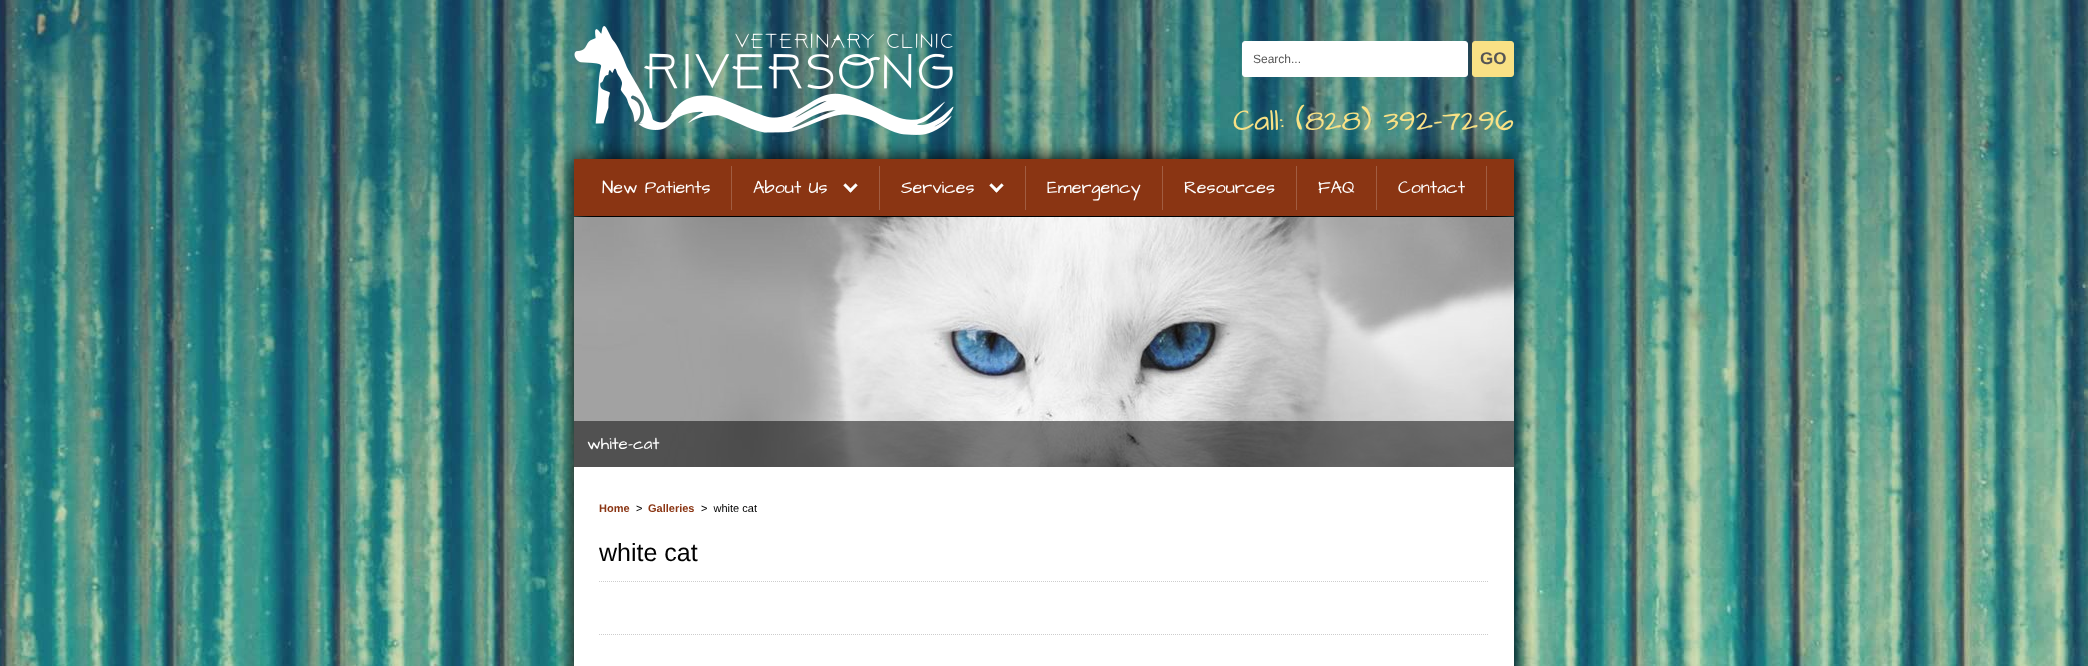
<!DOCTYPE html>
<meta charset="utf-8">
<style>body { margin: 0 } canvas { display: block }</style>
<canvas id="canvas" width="2088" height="666"></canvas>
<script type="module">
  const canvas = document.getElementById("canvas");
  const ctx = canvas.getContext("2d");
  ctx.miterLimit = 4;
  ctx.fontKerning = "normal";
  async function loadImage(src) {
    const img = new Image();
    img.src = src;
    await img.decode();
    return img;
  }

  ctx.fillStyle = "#ffffff";
  ctx.fillRect(0, 0, 2088, 666);
  ctx.drawImage(await loadImage("img1.png"), 0, 0, 2088, 666);
  ctx.fillStyle = "#000000";
  ctx.filter = "blur(10px)";
  ctx.beginPath();
  ctx.rect(574, 159, 940, 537);
  ctx.fill();
  ctx.filter = "none";
  ctx.drawImage(await loadImage("img2.png"), 574, 26, 380, 109);
  ctx.fillStyle = "#ffffff";
  ctx.beginPath();
  ctx.roundRect(1242.5, 41.5, 225, 35, 2.5);
  ctx.fill();
  ctx.strokeStyle = "#ffffff";
  ctx.stroke();
  ctx.font = "12px Liberation Sans";
  ctx.fillStyle = "#555555";
  ctx.fillText("Search...", 1253, 63);
  ctx.fillStyle = "#f9e185";
  ctx.beginPath();
  ctx.roundRect(1472.5, 41.5, 41, 35, 2.5);
  ctx.fill();
  ctx.strokeStyle = "#f9e185";
  ctx.stroke();
  ctx.font = "bold 17px Liberation Sans";
  ctx.fillStyle = "#555555";
  ctx.fillText("GO", 1480, 64);
  ctx.fillStyle = "#8a3513";
  ctx.fillRect(574, 159, 940, 57);
  ctx.font = "30px Architects Daughter";
  ctx.fillStyle = "#f9e185";
  ctx.fillText("Call: (828) 392-7296", 1233, 130);
  ctx.fillStyle = "#a15d42";
  ctx.fillRect(731, 166, 1, 44);
  ctx.font = "18px Architects Daughter";
  ctx.fillStyle = "#ffffff";
  ctx.fillText("New Patients", 602, 193);
  ctx.fillStyle = "#a15d42";
  ctx.fillRect(879, 166, 1, 44);
  ctx.drawImage(await loadImage("img3.png"), 843, 183, 15, 10);
  ctx.fillStyle = "#ffffff";
  ctx.fillText("About Us", 753, 193);
  ctx.fillStyle = "#a15d42";
  ctx.fillRect(1025, 166, 1, 44);
  ctx.drawImage(await loadImage("img3.png"), 989, 183, 15, 10);
  ctx.fillStyle = "#ffffff";
  ctx.fillText("Services", 901, 193);
  ctx.fillStyle = "#a15d42";
  ctx.fillRect(1162, 166, 1, 44);
  ctx.fillStyle = "#ffffff";
  ctx.fillText("Emergency", 1047, 193);
  ctx.fillStyle = "#a15d42";
  ctx.fillRect(1296, 166, 1, 44);
  ctx.fillStyle = "#ffffff";
  ctx.fillText("Resources", 1184, 193);
  ctx.fillStyle = "#a15d42";
  ctx.fillRect(1376, 166, 1, 44);
  ctx.fillStyle = "#ffffff";
  ctx.fillText("FAQ", 1318, 193);
  ctx.fillStyle = "#a15d42";
  ctx.fillRect(1486, 166, 1, 44);
  ctx.fillStyle = "#ffffff";
  ctx.fillText("Contact", 1398, 193);
  ctx.fillRect(574, 467, 940, 199);
  ctx.drawImage(await loadImage("img4.png"), 574, 217, 940, 250);
  ctx.fillStyle = "rgba(0, 0, 0, 0.5)";
  ctx.fillRect(574, 421, 940, 46);
  ctx.font = "17px Architects Daughter";
  ctx.fillStyle = "#ffffff";
  ctx.fillText("white-cat", 587, 449);
  ctx.font = "bold 11px Liberation Sans";
  ctx.fillStyle = "#8a3513";
  ctx.fillText("Home", 599, 512);
  ctx.font = "11px Liberation Sans";
  ctx.fillStyle = "#000000";
  ctx.fillText(">", 636, 512);
  ctx.font = "bold 11px Liberation Sans";
  ctx.fillStyle = "#8a3513";
  ctx.fillText("Galleries", 648, 512);
  ctx.font = "11px Liberation Sans";
  ctx.fillStyle = "#000000";
  ctx.fillText(">  white cat", 701, 512);
  ctx.beginPath();
  ctx.moveTo(599, 581.5);
  ctx.lineTo(1489, 581.5);
  ctx.strokeStyle = "#cdcdcd";
  ctx.setLineDash([1, 1]);
  ctx.stroke();
  ctx.font = "25px Liberation Sans";
  ctx.fillText("white cat", 599, 561);
  ctx.beginPath();
  ctx.moveTo(599, 634.5);
  ctx.lineTo(1489, 634.5);
  ctx.stroke();
</script>
